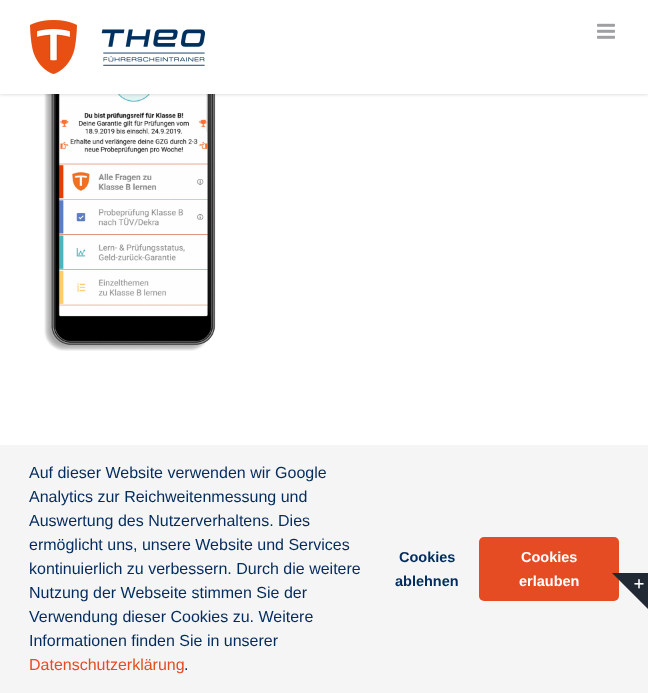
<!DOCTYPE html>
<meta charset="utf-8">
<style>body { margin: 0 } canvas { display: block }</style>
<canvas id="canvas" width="648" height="693"></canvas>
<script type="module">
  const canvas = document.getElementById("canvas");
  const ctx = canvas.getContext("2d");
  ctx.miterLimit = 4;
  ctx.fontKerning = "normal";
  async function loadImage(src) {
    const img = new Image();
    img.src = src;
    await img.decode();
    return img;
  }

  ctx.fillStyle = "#ffffff";
  ctx.fillRect(0, 0, 648, 693);
  ctx.drawImage(await loadImage("img3.png"), 44, 94, 172, 257);
  ctx.fillStyle = "rgba(0, 0, 0, 0.12)";
  ctx.filter = "blur(1.5px)";
  ctx.beginPath();
  ctx.rect(0, 1, 648, 94);
  ctx.fill();
  ctx.filter = "none";
  ctx.fillStyle = "#ffffff";
  ctx.fillRect(0, 0, 648, 94);
  ctx.drawImage(await loadImage("img1.png"), 30, 20, 175, 54);
  ctx.drawImage(await loadImage("img2.png"), 597, 23, 18, 16);
  ctx.fillStyle = "#f5f5f5";
  ctx.fillRect(0, 445, 648, 248);
  ctx.fillStyle = "#e64c23";
  ctx.beginPath();
  ctx.roundRect(479, 537, 140, 64, 5);
  ctx.fill();
  ctx.fillStyle = "#212934";
  ctx.beginPath();
  ctx.moveTo(612, 573);
  ctx.lineTo(648, 573);
  ctx.lineTo(648, 609);
  ctx.closePath();
  ctx.fill();
  ctx.drawImage(await loadImage("img4.png"), 634, 579, 10, 10);
  ctx.font = "16px Liberation Sans";
  ctx.fillStyle = "#032c5e";
  ctx.fillText("Auf dieser Website verwenden wir Google", 29, 478);
  ctx.fillText("Analytics zur Reichweitenmessung und", 29, 502);
  ctx.fillText("Auswertung des Nutzerverhaltens. Dies", 29, 526);
  ctx.fillText("ermöglicht uns, unsere Website und Services", 29, 550);
  ctx.fillText("kontinuierlich zu verbessern. Durch die weitere", 29, 574);
  ctx.fillText("Nutzung der Webseite stimmen Sie der", 29, 598);
  ctx.fillText("Verwendung dieser Cookies zu. Weitere", 29, 622);
  ctx.fillText("Informationen finden Sie in unserer", 29, 646);
  ctx.fillStyle = "#e64c23";
  ctx.fillText("Datenschutzerklärung", 29, 670);
  ctx.fillStyle = "#032c5e";
  ctx.fillText(".", 184, 670);
  ctx.font = "bold 14.5px Liberation Sans";
  ctx.fillText("Cookies", 399, 562);
  ctx.fillText("ablehnen", 395, 586);
  ctx.fillStyle = "#ffffff";
  ctx.fillText("Cookies", 521, 562);
  ctx.fillText("erlauben", 519, 586);
</script>
